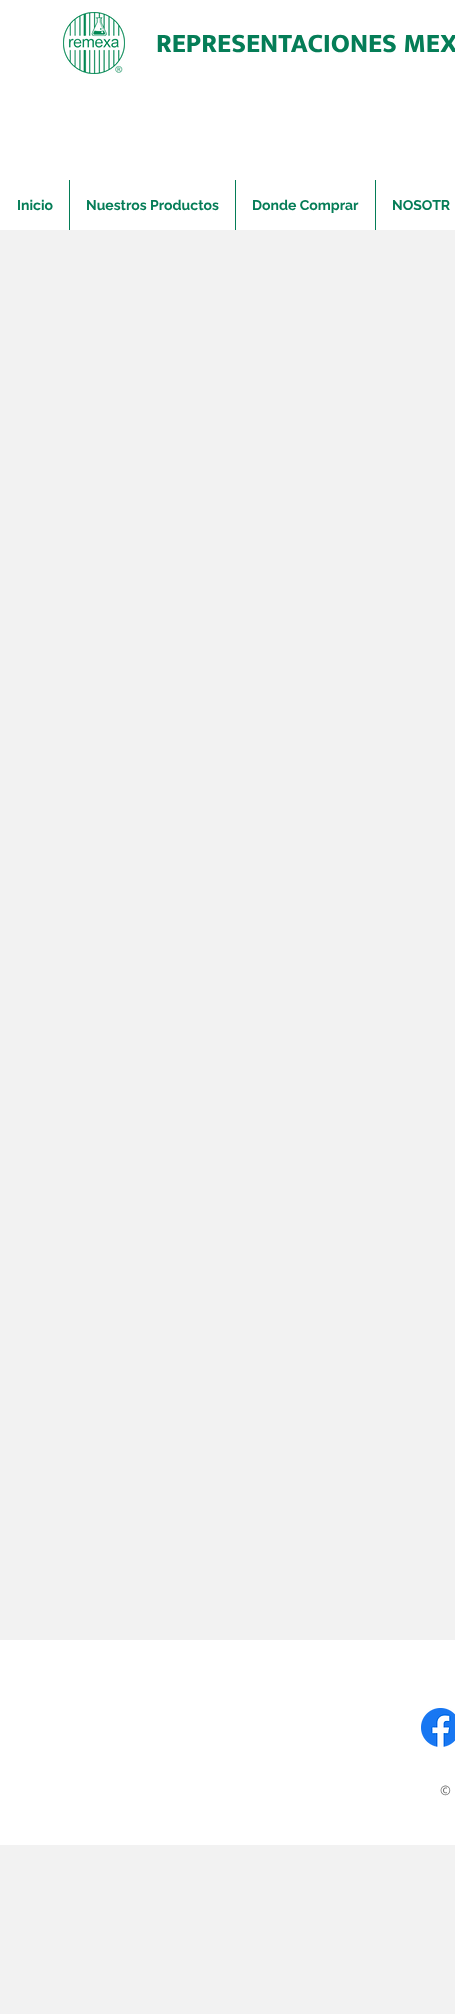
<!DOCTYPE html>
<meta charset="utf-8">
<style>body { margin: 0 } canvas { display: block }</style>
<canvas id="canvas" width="455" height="2014"></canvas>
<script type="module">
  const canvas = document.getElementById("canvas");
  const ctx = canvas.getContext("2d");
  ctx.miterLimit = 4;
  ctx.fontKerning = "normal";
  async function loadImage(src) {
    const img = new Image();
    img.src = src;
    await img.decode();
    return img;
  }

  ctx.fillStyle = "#f2f2f2";
  ctx.fillRect(0, 0, 455, 2014);
  ctx.fillStyle = "#ffffff";
  ctx.fillRect(0, 0, 455, 230);
  ctx.drawImage(await loadImage("img1.png"), 63, 12, 62, 62);
  ctx.font = "800 27px Mukta";
  ctx.fillStyle = "#057d57";
  ctx.fillText("REPRESENTACIONES MEX", 156, 52);
  ctx.font = "bold 14px Raleway";
  ctx.fillText("Inicio", 17, 210);
  ctx.fillRect(69, 180, 1, 50);
  ctx.fillText("Nuestros Productos", 86, 210);
  ctx.fillRect(235, 180, 1, 50);
  ctx.fillText("Donde Comprar", 252, 210);
  ctx.fillRect(375, 180, 1, 50);
  ctx.fillText("NOSOTR", 392, 210);
  ctx.fillStyle = "#ffffff";
  ctx.fillRect(0, 1640, 455, 205);
  ctx.drawImage(await loadImage("img2.png"), 421, 1708, 34, 39);
  ctx.font = "13px Open Sans";
  ctx.fillStyle = "#666666";
  ctx.fillText("©", 440, 1795);
</script>
